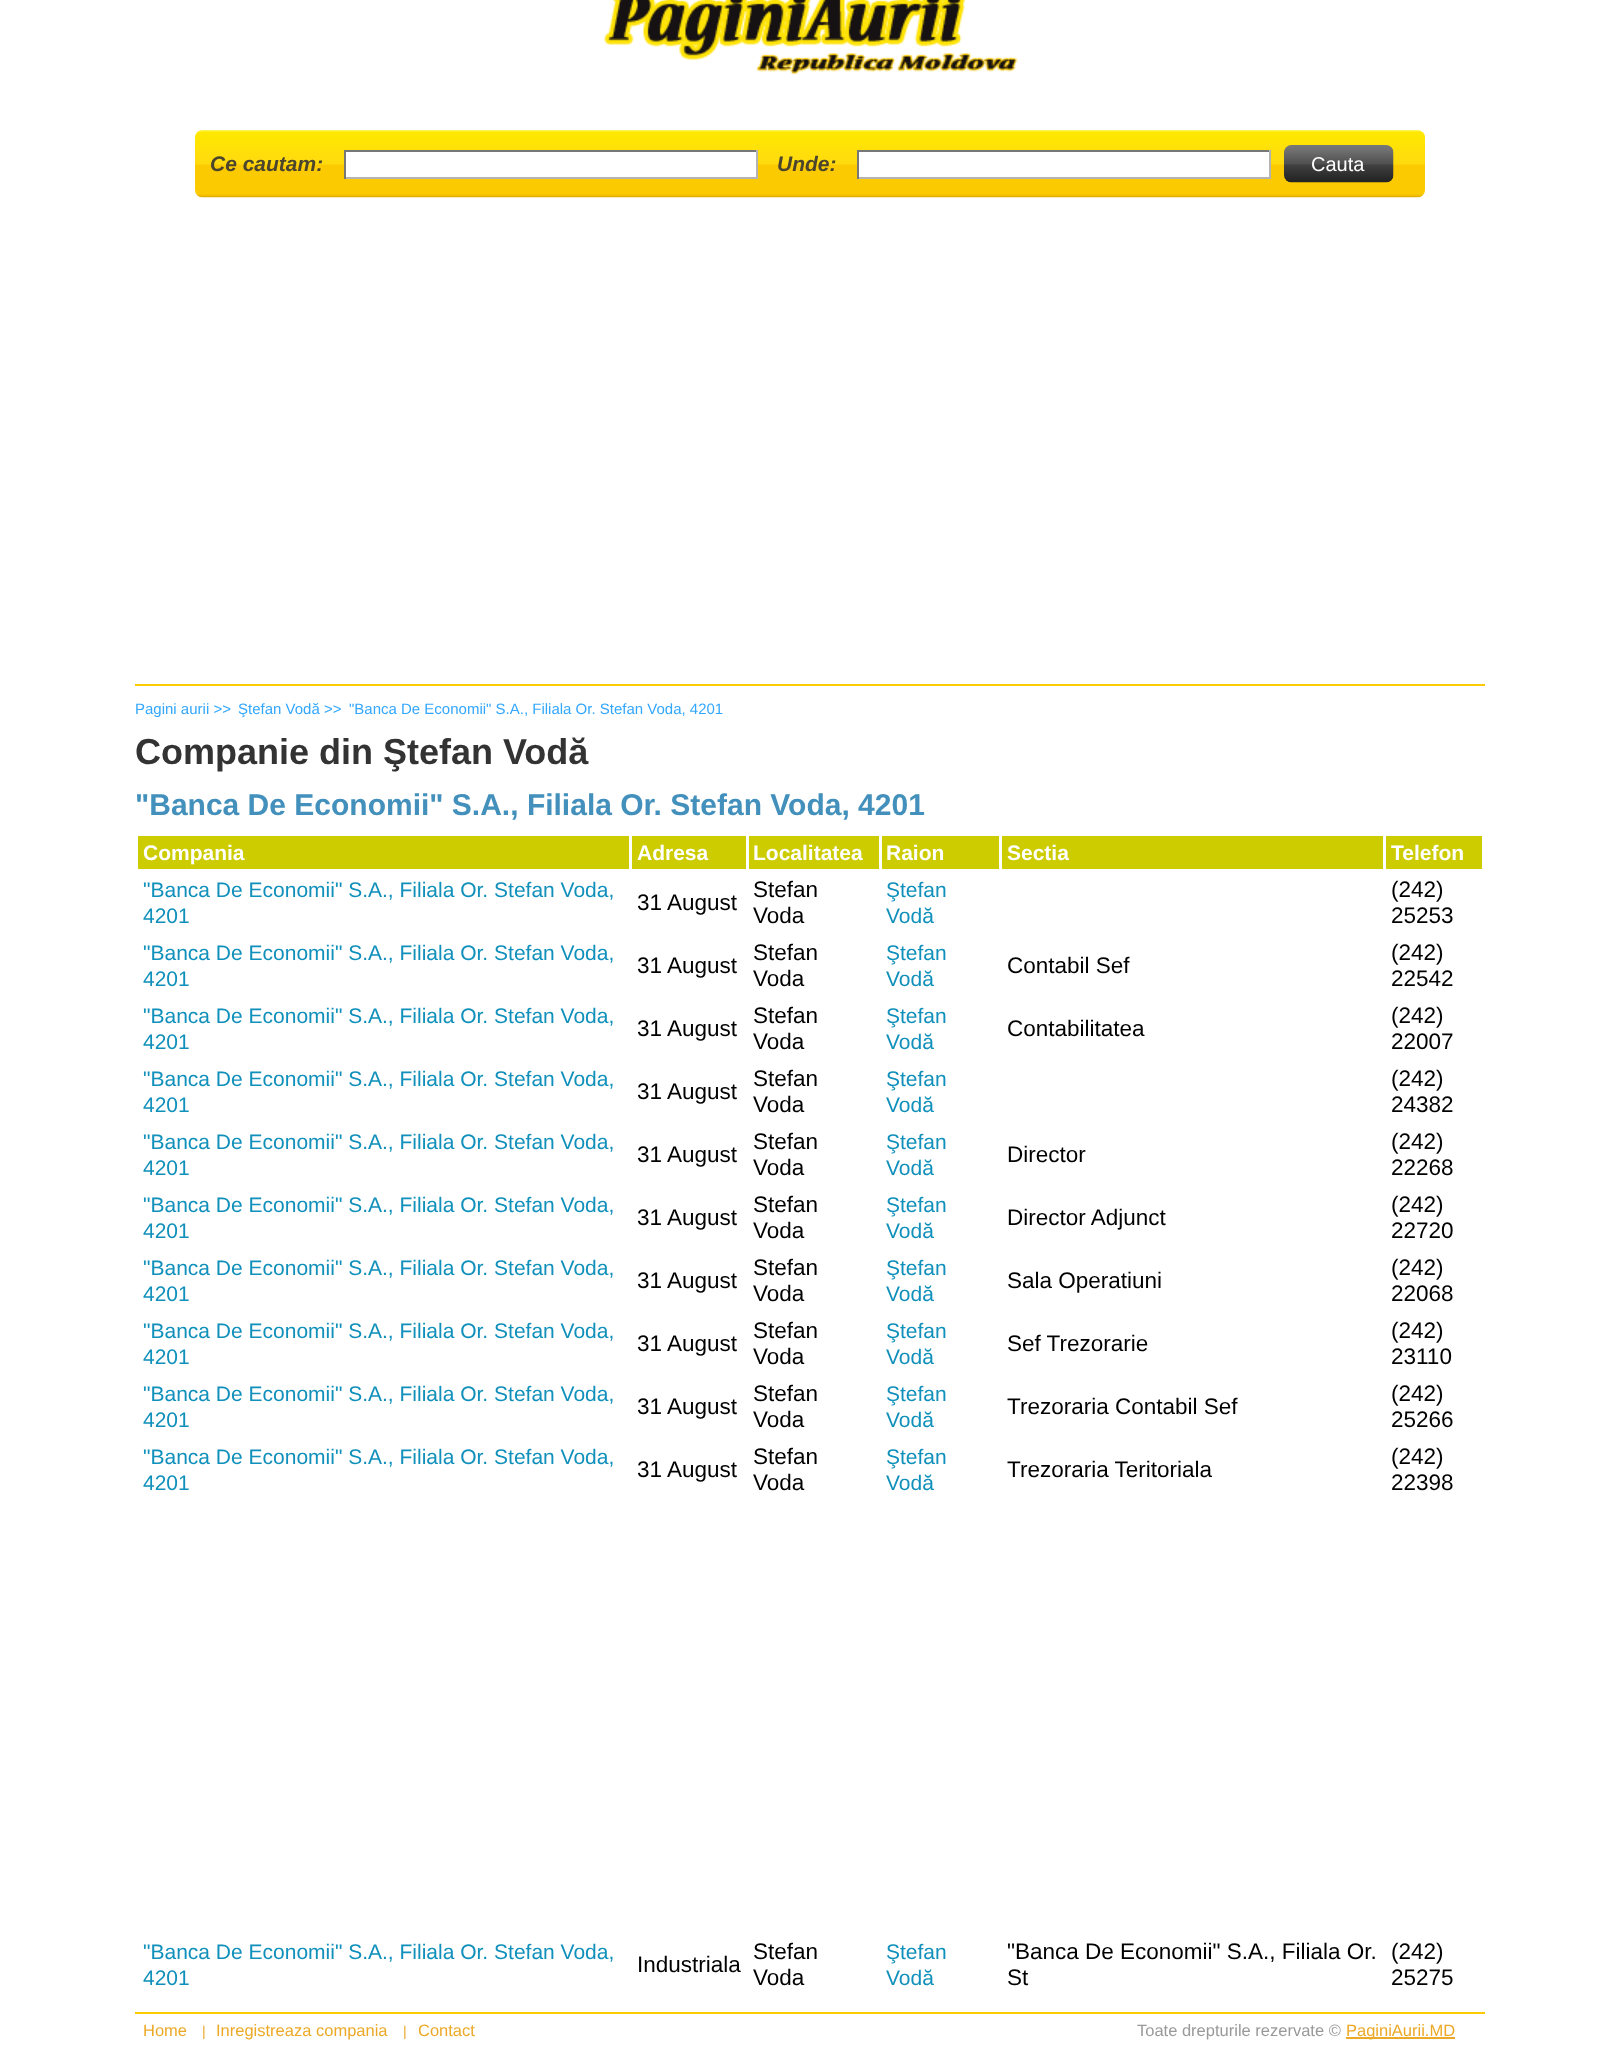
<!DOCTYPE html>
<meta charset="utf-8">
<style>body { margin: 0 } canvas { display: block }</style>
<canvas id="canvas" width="1620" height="2067"></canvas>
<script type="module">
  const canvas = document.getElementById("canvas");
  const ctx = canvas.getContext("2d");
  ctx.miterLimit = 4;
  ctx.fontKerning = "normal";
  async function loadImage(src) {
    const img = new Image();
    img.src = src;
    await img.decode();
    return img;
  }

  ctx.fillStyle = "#ffffff";
  ctx.fillRect(0, 0, 1620, 2067);
  ctx.drawImage(await loadImage("img1.png"), 604, 0, 414, 75);
  ctx.drawImage(await loadImage("img2.png"), 195, 130, 1230, 68);
  ctx.font = "italic bold 21px Liberation Sans";
  ctx.fillStyle = "#4b452d";
  ctx.fillText("Ce cautam:", 210, 171);
  ctx.fillStyle = "#ffffff";
  ctx.fillRect(346, 152, 410, 25);
  ctx.fillStyle = "#777777";
  ctx.fillRect(344, 150, 414, 2);
  ctx.fillStyle = "#b3b3b3";
  ctx.fillRect(756, 150, 2, 29);
  ctx.fillRect(344, 177, 414, 2);
  ctx.fillStyle = "#777777";
  ctx.fillRect(344, 150, 2, 29);
  ctx.fillStyle = "#4b452d";
  ctx.fillText("Unde:", 777, 171);
  ctx.fillStyle = "#ffffff";
  ctx.fillRect(859, 152, 410, 25);
  ctx.fillStyle = "#777777";
  ctx.fillRect(857, 150, 414, 2);
  ctx.fillStyle = "#b3b3b3";
  ctx.fillRect(1269, 150, 2, 29);
  ctx.fillRect(857, 177, 414, 2);
  ctx.fillStyle = "#777777";
  ctx.fillRect(857, 150, 2, 29);
  ctx.drawImage(await loadImage("img3.png"), 1284, 145, 110, 38);
  ctx.font = "20px Liberation Sans";
  ctx.fillStyle = "#ffffff";
  ctx.fillText("Cauta", 1311, 171);
  ctx.fillStyle = "#fcca00";
  ctx.fillRect(135, 684, 1350, 2);
  ctx.font = "15px Liberation Sans";
  ctx.fillStyle = "#33a7fe";
  ctx.fillText("Pagini aurii >>", 135, 714);
  ctx.fillText("Ştefan Vodă >>", 238, 714);
  ctx.fillText("\"Banca De Economii\" S.A., Filiala Or. Stefan Voda, 4201", 349, 714);
  ctx.font = "bold 36px Liberation Sans";
  ctx.fillStyle = "#333333";
  ctx.fillText("Companie din Ştefan Vodă", 135, 764);
  ctx.font = "bold 30px Liberation Sans";
  ctx.fillStyle = "#4290bb";
  ctx.fillText("\"Banca De Economii\" S.A., Filiala Or. Stefan Voda, 4201", 135, 815);
  ctx.fillStyle = "#cccc00";
  ctx.fillRect(138, 836, 491, 33);
  ctx.font = "bold 21px Liberation Sans";
  ctx.fillStyle = "#ffffff";
  ctx.fillText("Compania", 143, 860);
  ctx.fillStyle = "#cccc00";
  ctx.fillRect(632, 836, 114, 33);
  ctx.fillStyle = "#ffffff";
  ctx.fillText("Adresa", 637, 860);
  ctx.fillStyle = "#cccc00";
  ctx.fillRect(749, 836, 130, 33);
  ctx.fillStyle = "#ffffff";
  ctx.fillText("Localitatea", 753, 860);
  ctx.fillStyle = "#cccc00";
  ctx.fillRect(882, 836, 117, 33);
  ctx.fillStyle = "#ffffff";
  ctx.fillText("Raion", 886, 860);
  ctx.fillStyle = "#cccc00";
  ctx.fillRect(1002, 836, 381, 33);
  ctx.fillStyle = "#ffffff";
  ctx.fillText("Sectia", 1007, 860);
  ctx.fillStyle = "#cccc00";
  ctx.fillRect(1386, 836, 96, 33);
  ctx.fillStyle = "#ffffff";
  ctx.fillText("Telefon", 1391, 860);
  ctx.font = "21px Liberation Sans";
  ctx.fillStyle = "#1090bb";
  ctx.fillText("\"Banca De Economii\" S.A., Filiala Or. Stefan Voda,", 143, 897);
  ctx.fillText("4201", 143, 923);
  ctx.font = "22.5px Liberation Sans";
  ctx.fillStyle = "#000000";
  ctx.fillText("31 August", 637, 910);
  ctx.fillText("Stefan", 753, 897);
  ctx.fillText("Voda", 753, 923);
  ctx.font = "21px Liberation Sans";
  ctx.fillStyle = "#1090bb";
  ctx.fillText("Ştefan", 886, 897);
  ctx.fillText("Vodă", 886, 923);
  ctx.font = "22.5px Liberation Sans";
  ctx.fillStyle = "#000000";
  ctx.fillText("(242)", 1391, 897);
  ctx.fillText("25253", 1391, 923);
  ctx.font = "21px Liberation Sans";
  ctx.fillStyle = "#1090bb";
  ctx.fillText("\"Banca De Economii\" S.A., Filiala Or. Stefan Voda,", 143, 960);
  ctx.fillText("4201", 143, 986);
  ctx.font = "22.5px Liberation Sans";
  ctx.fillStyle = "#000000";
  ctx.fillText("31 August", 637, 973);
  ctx.fillText("Stefan", 753, 960);
  ctx.fillText("Voda", 753, 986);
  ctx.font = "21px Liberation Sans";
  ctx.fillStyle = "#1090bb";
  ctx.fillText("Ştefan", 886, 960);
  ctx.fillText("Vodă", 886, 986);
  ctx.font = "22.5px Liberation Sans";
  ctx.fillStyle = "#000000";
  ctx.fillText("Contabil Sef", 1007, 973);
  ctx.fillText("(242)", 1391, 960);
  ctx.fillText("22542", 1391, 986);
  ctx.font = "21px Liberation Sans";
  ctx.fillStyle = "#1090bb";
  ctx.fillText("\"Banca De Economii\" S.A., Filiala Or. Stefan Voda,", 143, 1023);
  ctx.fillText("4201", 143, 1049);
  ctx.font = "22.5px Liberation Sans";
  ctx.fillStyle = "#000000";
  ctx.fillText("31 August", 637, 1036);
  ctx.fillText("Stefan", 753, 1023);
  ctx.fillText("Voda", 753, 1049);
  ctx.font = "21px Liberation Sans";
  ctx.fillStyle = "#1090bb";
  ctx.fillText("Ştefan", 886, 1023);
  ctx.fillText("Vodă", 886, 1049);
  ctx.font = "22.5px Liberation Sans";
  ctx.fillStyle = "#000000";
  ctx.fillText("Contabilitatea", 1007, 1036);
  ctx.fillText("(242)", 1391, 1023);
  ctx.fillText("22007", 1391, 1049);
  ctx.font = "21px Liberation Sans";
  ctx.fillStyle = "#1090bb";
  ctx.fillText("\"Banca De Economii\" S.A., Filiala Or. Stefan Voda,", 143, 1086);
  ctx.fillText("4201", 143, 1112);
  ctx.font = "22.5px Liberation Sans";
  ctx.fillStyle = "#000000";
  ctx.fillText("31 August", 637, 1099);
  ctx.fillText("Stefan", 753, 1086);
  ctx.fillText("Voda", 753, 1112);
  ctx.font = "21px Liberation Sans";
  ctx.fillStyle = "#1090bb";
  ctx.fillText("Ştefan", 886, 1086);
  ctx.fillText("Vodă", 886, 1112);
  ctx.font = "22.5px Liberation Sans";
  ctx.fillStyle = "#000000";
  ctx.fillText("(242)", 1391, 1086);
  ctx.fillText("24382", 1391, 1112);
  ctx.font = "21px Liberation Sans";
  ctx.fillStyle = "#1090bb";
  ctx.fillText("\"Banca De Economii\" S.A., Filiala Or. Stefan Voda,", 143, 1149);
  ctx.fillText("4201", 143, 1175);
  ctx.font = "22.5px Liberation Sans";
  ctx.fillStyle = "#000000";
  ctx.fillText("31 August", 637, 1162);
  ctx.fillText("Stefan", 753, 1149);
  ctx.fillText("Voda", 753, 1175);
  ctx.font = "21px Liberation Sans";
  ctx.fillStyle = "#1090bb";
  ctx.fillText("Ştefan", 886, 1149);
  ctx.fillText("Vodă", 886, 1175);
  ctx.font = "22.5px Liberation Sans";
  ctx.fillStyle = "#000000";
  ctx.fillText("Director", 1007, 1162);
  ctx.fillText("(242)", 1391, 1149);
  ctx.fillText("22268", 1391, 1175);
  ctx.font = "21px Liberation Sans";
  ctx.fillStyle = "#1090bb";
  ctx.fillText("\"Banca De Economii\" S.A., Filiala Or. Stefan Voda,", 143, 1212);
  ctx.fillText("4201", 143, 1238);
  ctx.font = "22.5px Liberation Sans";
  ctx.fillStyle = "#000000";
  ctx.fillText("31 August", 637, 1225);
  ctx.fillText("Stefan", 753, 1212);
  ctx.fillText("Voda", 753, 1238);
  ctx.font = "21px Liberation Sans";
  ctx.fillStyle = "#1090bb";
  ctx.fillText("Ştefan", 886, 1212);
  ctx.fillText("Vodă", 886, 1238);
  ctx.font = "22.5px Liberation Sans";
  ctx.fillStyle = "#000000";
  ctx.fillText("Director Adjunct", 1007, 1225);
  ctx.fillText("(242)", 1391, 1212);
  ctx.fillText("22720", 1391, 1238);
  ctx.font = "21px Liberation Sans";
  ctx.fillStyle = "#1090bb";
  ctx.fillText("\"Banca De Economii\" S.A., Filiala Or. Stefan Voda,", 143, 1275);
  ctx.fillText("4201", 143, 1301);
  ctx.font = "22.5px Liberation Sans";
  ctx.fillStyle = "#000000";
  ctx.fillText("31 August", 637, 1288);
  ctx.fillText("Stefan", 753, 1275);
  ctx.fillText("Voda", 753, 1301);
  ctx.font = "21px Liberation Sans";
  ctx.fillStyle = "#1090bb";
  ctx.fillText("Ştefan", 886, 1275);
  ctx.fillText("Vodă", 886, 1301);
  ctx.font = "22.5px Liberation Sans";
  ctx.fillStyle = "#000000";
  ctx.fillText("Sala Operatiuni", 1007, 1288);
  ctx.fillText("(242)", 1391, 1275);
  ctx.fillText("22068", 1391, 1301);
  ctx.font = "21px Liberation Sans";
  ctx.fillStyle = "#1090bb";
  ctx.fillText("\"Banca De Economii\" S.A., Filiala Or. Stefan Voda,", 143, 1338);
  ctx.fillText("4201", 143, 1364);
  ctx.font = "22.5px Liberation Sans";
  ctx.fillStyle = "#000000";
  ctx.fillText("31 August", 637, 1351);
  ctx.fillText("Stefan", 753, 1338);
  ctx.fillText("Voda", 753, 1364);
  ctx.font = "21px Liberation Sans";
  ctx.fillStyle = "#1090bb";
  ctx.fillText("Ştefan", 886, 1338);
  ctx.fillText("Vodă", 886, 1364);
  ctx.font = "22.5px Liberation Sans";
  ctx.fillStyle = "#000000";
  ctx.fillText("Sef Trezorarie", 1007, 1351);
  ctx.fillText("(242)", 1391, 1338);
  ctx.fillText("23110", 1391, 1364);
  ctx.font = "21px Liberation Sans";
  ctx.fillStyle = "#1090bb";
  ctx.fillText("\"Banca De Economii\" S.A., Filiala Or. Stefan Voda,", 143, 1401);
  ctx.fillText("4201", 143, 1427);
  ctx.font = "22.5px Liberation Sans";
  ctx.fillStyle = "#000000";
  ctx.fillText("31 August", 637, 1414);
  ctx.fillText("Stefan", 753, 1401);
  ctx.fillText("Voda", 753, 1427);
  ctx.font = "21px Liberation Sans";
  ctx.fillStyle = "#1090bb";
  ctx.fillText("Ştefan", 886, 1401);
  ctx.fillText("Vodă", 886, 1427);
  ctx.font = "22.5px Liberation Sans";
  ctx.fillStyle = "#000000";
  ctx.fillText("Trezoraria Contabil Sef", 1007, 1414);
  ctx.fillText("(242)", 1391, 1401);
  ctx.fillText("25266", 1391, 1427);
  ctx.font = "21px Liberation Sans";
  ctx.fillStyle = "#1090bb";
  ctx.fillText("\"Banca De Economii\" S.A., Filiala Or. Stefan Voda,", 143, 1464);
  ctx.fillText("4201", 143, 1490);
  ctx.font = "22.5px Liberation Sans";
  ctx.fillStyle = "#000000";
  ctx.fillText("31 August", 637, 1477);
  ctx.fillText("Stefan", 753, 1464);
  ctx.fillText("Voda", 753, 1490);
  ctx.font = "21px Liberation Sans";
  ctx.fillStyle = "#1090bb";
  ctx.fillText("Ştefan", 886, 1464);
  ctx.fillText("Vodă", 886, 1490);
  ctx.font = "22.5px Liberation Sans";
  ctx.fillStyle = "#000000";
  ctx.fillText("Trezoraria Teritoriala", 1007, 1477);
  ctx.fillText("(242)", 1391, 1464);
  ctx.fillText("22398", 1391, 1490);
  ctx.font = "21px Liberation Sans";
  ctx.fillStyle = "#1090bb";
  ctx.fillText("\"Banca De Economii\" S.A., Filiala Or. Stefan Voda,", 143, 1959);
  ctx.fillText("4201", 143, 1985);
  ctx.font = "22.5px Liberation Sans";
  ctx.fillStyle = "#000000";
  ctx.fillText("Industriala", 637, 1972);
  ctx.fillText("Stefan", 753, 1959);
  ctx.fillText("Voda", 753, 1985);
  ctx.font = "21px Liberation Sans";
  ctx.fillStyle = "#1090bb";
  ctx.fillText("Ştefan", 886, 1959);
  ctx.fillText("Vodă", 886, 1985);
  ctx.font = "22.5px Liberation Sans";
  ctx.fillStyle = "#000000";
  ctx.fillText("\"Banca De Economii\" S.A., Filiala Or.", 1007, 1959);
  ctx.fillText("St", 1007, 1985);
  ctx.fillText("(242)", 1391, 1959);
  ctx.fillText("25275", 1391, 1985);
  ctx.fillStyle = "#fcca00";
  ctx.fillRect(135, 2012, 1350, 2);
  ctx.font = "16.5px Liberation Sans";
  ctx.fillStyle = "#eca927";
  ctx.fillText("Home", 143, 2036);
  ctx.font = "14px Liberation Sans";
  ctx.fillText("|", 202, 2036);
  ctx.font = "16.5px Liberation Sans";
  ctx.fillText("Inregistreaza compania", 216, 2036);
  ctx.font = "14px Liberation Sans";
  ctx.fillText("|", 403, 2036);
  ctx.font = "16.5px Liberation Sans";
  ctx.fillText("Contact", 418, 2036);
  ctx.fillStyle = "#999999";
  ctx.fillText("Toate drepturile rezervate ©", 1137, 2036);
  ctx.fillStyle = "#eca927";
  ctx.fillRect(1346, 2037, 109, 2);
  ctx.fillText("PaginiAurii.MD", 1346, 2036);
</script>
